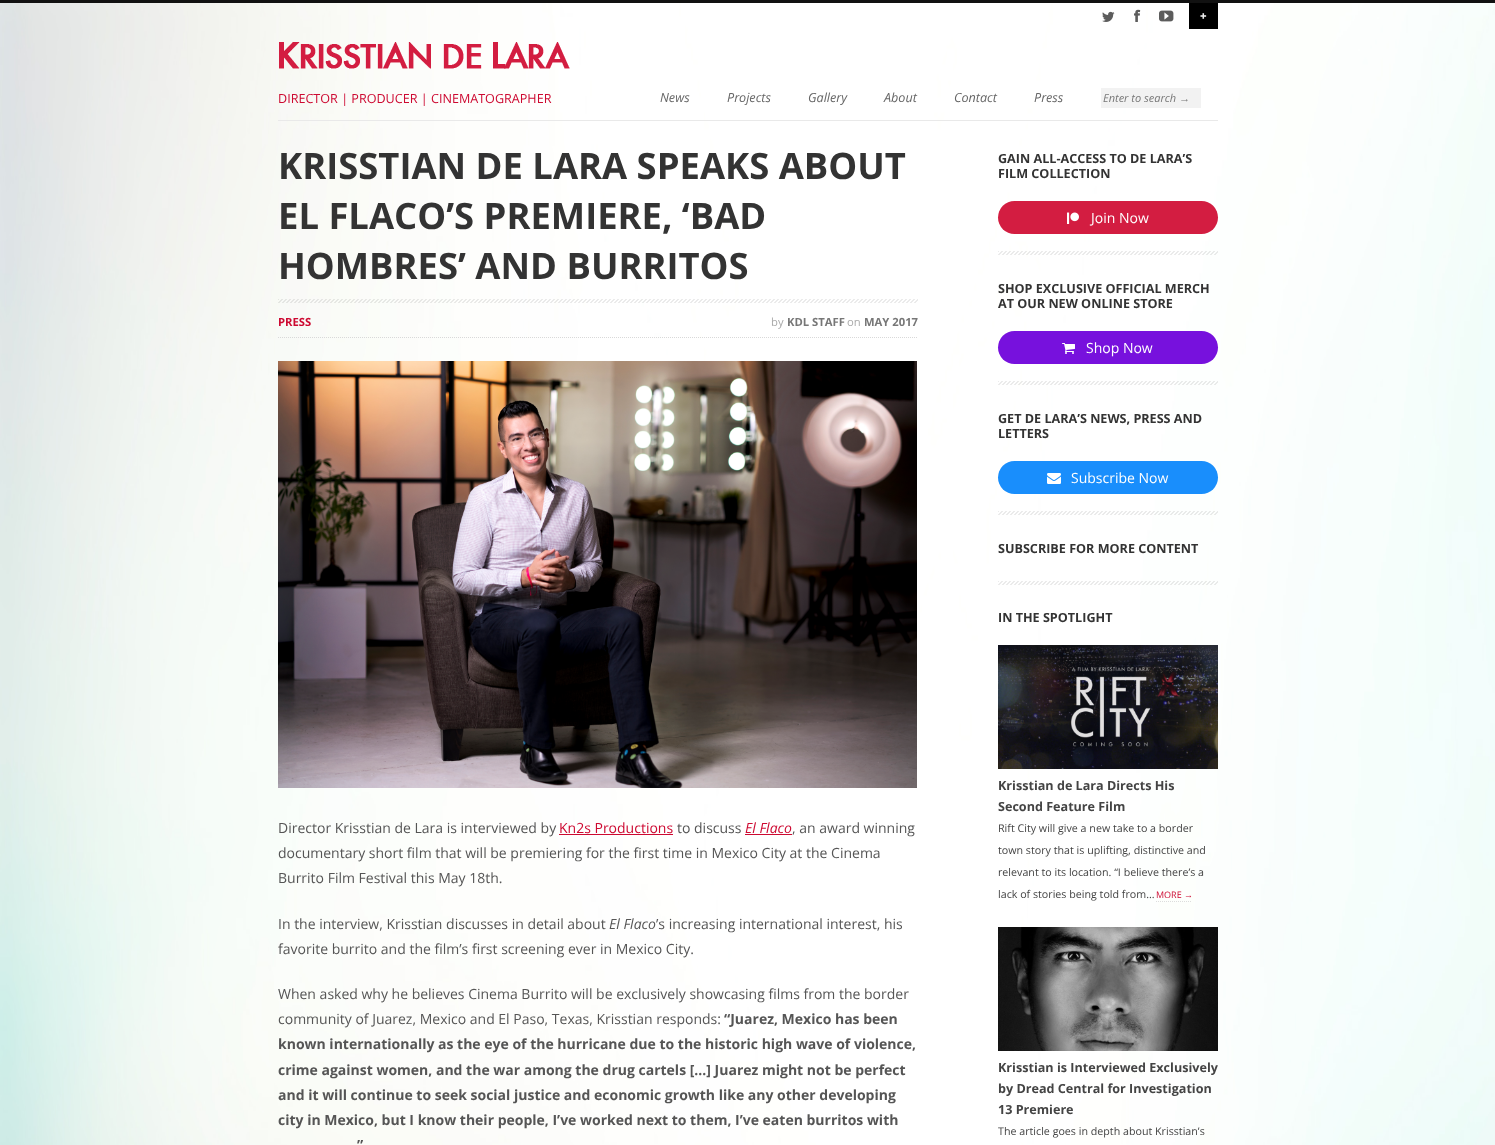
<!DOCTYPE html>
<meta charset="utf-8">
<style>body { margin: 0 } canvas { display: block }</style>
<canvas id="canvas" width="1495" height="1145"></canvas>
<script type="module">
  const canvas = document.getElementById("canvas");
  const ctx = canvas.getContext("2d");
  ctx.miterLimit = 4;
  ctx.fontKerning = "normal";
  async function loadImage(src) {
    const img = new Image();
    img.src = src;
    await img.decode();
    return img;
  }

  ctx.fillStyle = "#ffffff";
  ctx.fillRect(0, 0, 1495, 1145);
  ctx.drawImage(await loadImage("img1.png"), 0, 3, 1495, 1142);
  ctx.fillStyle = "#111111";
  ctx.fillRect(0, 0, 1495, 3);
  ctx.drawImage(await loadImage("img2.png"), 1102, 11, 13, 11);
  ctx.drawImage(await loadImage("img3.png"), 1134, 9, 7, 13);
  ctx.drawImage(await loadImage("img4.png"), 1159, 10, 15, 12);
  ctx.fillStyle = "#000000";
  ctx.fillRect(1189, 3, 29, 26);
  ctx.font = "800 11.25px Open Sans";
  ctx.fillStyle = "#efefef";
  ctx.fillText("+", 1200, 20);
  ctx.fillStyle = "#e9e9e9";
  ctx.fillRect(278, 120, 940, 1);
  ctx.drawImage(await loadImage("img5.png"), 279, 42, 291, 27);
  ctx.font = "12.6px Open Sans";
  ctx.fillStyle = "#cd0931";
  ctx.fillText("DIRECTOR | PRODUCER | CINEMATOGRAPHER", 278, 103);
  ctx.font = "italic 12.6px Open Sans";
  ctx.fillStyle = "#666666";
  ctx.fillText("News", 660, 102);
  ctx.fillText("Projects", 727, 102);
  ctx.fillText("Gallery", 808, 102);
  ctx.fillText("About", 884, 102);
  ctx.fillText("Contact", 954, 102);
  ctx.fillText("Press", 1034, 102);
  ctx.fillStyle = "#f2f2f2";
  ctx.fillRect(1101, 88, 100, 20);
  ctx.font = "italic 11px Open Sans";
  ctx.fillStyle = "#777777";
  ctx.fillText("Enter to search", 1103, 102);
  ctx.font = "italic 11px Liberation Sans";
  ctx.fillText("→", 1179, 102);
  ctx.drawImage(await loadImage("img6.png"), 278, 299, 640, 4);
  ctx.font = "bold 36.4px Open Sans";
  ctx.fillStyle = "#333333";
  ctx.fillText("KRISSTIAN DE LARA SPEAKS ABOUT", 278, 179);
  ctx.fillText("EL FLACO’S PREMIERE, ‘BAD", 278, 229);
  ctx.fillText("HOMBRES’ AND BURRITOS", 278, 279);
  ctx.beginPath();
  ctx.moveTo(278, 337.5);
  ctx.lineTo(918, 337.5);
  ctx.strokeStyle = "#d9d9d9";
  ctx.setLineDash([1, 1]);
  ctx.stroke();
  ctx.font = "bold 11.25px Open Sans";
  ctx.fillStyle = "#cd0931";
  ctx.fillText("PRESS", 278, 326);
  ctx.font = "11.25px Open Sans";
  ctx.fillStyle = "#aaaaaa";
  ctx.fillText("by", 771, 326);
  ctx.font = "bold 11.25px Open Sans";
  ctx.fillStyle = "#777777";
  ctx.fillText("KDL STAFF", 787, 326);
  ctx.font = "11.25px Open Sans";
  ctx.fillStyle = "#aaaaaa";
  ctx.fillText("on", 847, 326);
  ctx.font = "bold 11.25px Open Sans";
  ctx.fillStyle = "#777777";
  ctx.fillText("MAY 2017", 864, 326);
  ctx.drawImage(await loadImage("img7.png"), 278, 361, 639, 427);
  ctx.font = "14px Open Sans";
  ctx.fillStyle = "#555555";
  ctx.fillText("Director Krisstian de Lara is interviewed by", 278, 833);
  ctx.fillStyle = "#cd0931";
  ctx.fillText("Kn2s Productions", 559, 833);
  ctx.fillRect(559, 834, 114, 1);
  ctx.fillStyle = "#555555";
  ctx.fillText("to discuss", 677, 833);
  ctx.font = "italic 14px Open Sans";
  ctx.fillStyle = "#cd0931";
  ctx.fillText("El Flaco", 745, 833);
  ctx.fillRect(745, 834, 47, 1);
  ctx.font = "14px Open Sans";
  ctx.fillStyle = "#555555";
  ctx.fillText(", an award winning", 792, 833);
  ctx.fillText("documentary short film that will be premiering for the first time in Mexico City at the Cinema", 278, 858);
  ctx.fillText("Burrito Film Festival this May 18th.", 278, 883);
  ctx.fillText("In the interview, Krisstian discusses in detail about", 278, 929);
  ctx.font = "italic 14px Open Sans";
  ctx.fillText("El Flaco", 609, 929);
  ctx.font = "14px Open Sans";
  ctx.fillText("’s increasing international interest, his", 656, 929);
  ctx.fillText("favorite burrito and the film’s first screening ever in Mexico City.", 278, 954);
  ctx.fillText("When asked why he believes Cinema Burrito will be exclusively showcasing films from the border", 278, 999);
  ctx.fillText("community of Juarez, Mexico and El Paso, Texas, Krisstian responds:", 278, 1024);
  ctx.font = "bold 14px Open Sans";
  ctx.fillText("“Juarez, Mexico has been", 724, 1024);
  ctx.fillText("known internationally as the eye of the hurricane due to the historic high wave of violence,", 278, 1049);
  ctx.fillText("crime against women, and the war among the drug cartels […] Juarez might not be perfect", 278, 1075);
  ctx.fillText("and it will continue to seek social justice and economic growth like any other developing", 278, 1100);
  ctx.fillText("city in Mexico, but I know their people, I’ve worked next to them, I’ve eaten burritos with", 278, 1125);
  ctx.fillText("”", 357, 1150);
  ctx.drawImage(await loadImage("img8.png"), 998, 251, 220, 4);
  ctx.font = "bold 12.6px Open Sans";
  ctx.fillStyle = "#333333";
  ctx.fillText("GAIN ALL-ACCESS TO DE LARA’S", 998, 163);
  ctx.fillText("FILM COLLECTION", 998, 178);
  ctx.fillStyle = "#d31d41";
  ctx.beginPath();
  ctx.roundRect(998, 201, 220, 33, 16.5);
  ctx.fill();
  ctx.drawImage(await loadImage("img9.png"), 1067, 212, 12, 12);
  ctx.font = "14px Open Sans";
  ctx.fillStyle = "#ffffff";
  ctx.fillText("Join Now", 1091, 223);
  ctx.drawImage(await loadImage("img10.png"), 998, 381, 220, 4);
  ctx.font = "bold 12.6px Open Sans";
  ctx.fillStyle = "#333333";
  ctx.fillText("SHOP EXCLUSIVE OFFICIAL MERCH", 998, 293);
  ctx.fillText("AT OUR NEW ONLINE STORE", 998, 308);
  ctx.fillStyle = "#7711dd";
  ctx.beginPath();
  ctx.roundRect(998, 331, 220, 33, 16.5);
  ctx.fill();
  ctx.drawImage(await loadImage("img11.png"), 1062, 343, 13, 11);
  ctx.font = "14px Open Sans";
  ctx.fillStyle = "#ffffff";
  ctx.fillText("Shop Now", 1086, 353);
  ctx.drawImage(await loadImage("img12.png"), 998, 511, 220, 4);
  ctx.font = "bold 12.6px Open Sans";
  ctx.fillStyle = "#333333";
  ctx.fillText("GET DE LARA’S NEWS, PRESS AND", 998, 423);
  ctx.fillText("LETTERS", 998, 438);
  ctx.fillStyle = "#198efc";
  ctx.beginPath();
  ctx.roundRect(998, 461, 220, 33, 16.5);
  ctx.fill();
  ctx.drawImage(await loadImage("img13.png"), 1047, 473, 14, 11);
  ctx.font = "14px Open Sans";
  ctx.fillStyle = "#ffffff";
  ctx.fillText("Subscribe Now", 1071, 483);
  ctx.drawImage(await loadImage("img14.png"), 998, 581, 220, 4);
  ctx.font = "bold 12.6px Open Sans";
  ctx.fillStyle = "#333333";
  ctx.fillText("SUBSCRIBE FOR MORE CONTENT", 998, 553);
  ctx.fillText("IN THE SPOTLIGHT", 998, 622);
  ctx.drawImage(await loadImage("img15.png"), 998, 645, 220, 124);
  ctx.fillStyle = "#444444";
  ctx.fillText("Krisstian de Lara Directs His", 998, 790);
  ctx.fillText("Second Feature Film", 998, 811);
  ctx.font = "10.7px Open Sans";
  ctx.fillText("Rift City will give a new take to a border", 998, 832);
  ctx.fillText("town story that is uplifting, distinctive and", 998, 854);
  ctx.fillText("relevant to its location. “I believe there’s a", 998, 876);
  ctx.fillText("lack of stories being told from…", 998, 898);
  ctx.font = "9px Open Sans";
  ctx.fillStyle = "#cd0931";
  ctx.fillText("MORE", 1156, 898);
  ctx.font = "9px Liberation Sans";
  ctx.fillText("→", 1184, 898);
  ctx.beginPath();
  ctx.moveTo(1156, 901.5);
  ctx.lineTo(1192, 901.5);
  ctx.strokeStyle = "#dddddd";
  ctx.stroke();
  ctx.drawImage(await loadImage("img16.png"), 998, 927, 220, 124);
  ctx.font = "bold 12.6px Open Sans";
  ctx.fillStyle = "#444444";
  ctx.fillText("Krisstian is Interviewed Exclusively", 998, 1072);
  ctx.fillText("by Dread Central for Investigation", 998, 1093);
  ctx.fillText("13 Premiere", 998, 1114);
  ctx.font = "10.7px Open Sans";
  ctx.fillText("The article goes in depth about Krisstian’s", 998, 1135);
</script>
